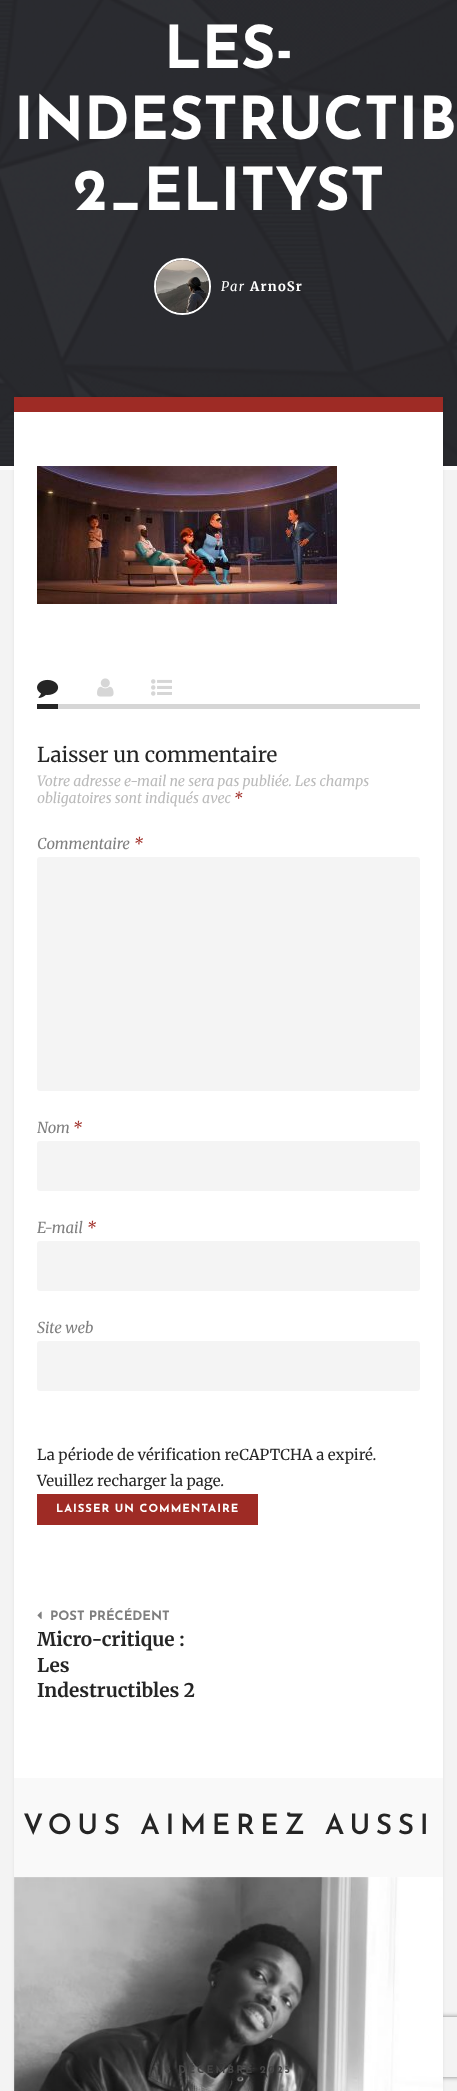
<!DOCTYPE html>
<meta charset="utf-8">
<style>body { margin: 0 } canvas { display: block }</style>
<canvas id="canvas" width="457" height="2091"></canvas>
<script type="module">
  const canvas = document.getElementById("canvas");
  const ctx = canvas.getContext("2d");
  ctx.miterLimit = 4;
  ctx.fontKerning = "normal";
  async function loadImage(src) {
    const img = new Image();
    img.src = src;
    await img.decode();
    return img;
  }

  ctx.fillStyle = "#f3f3f3";
  ctx.fillRect(0, 0, 457, 2091);
  ctx.fillStyle = "#ffffff";
  ctx.fillRect(0, 466, 457, 4);
  ctx.drawImage(await loadImage("img1.png"), 0, 0, 457, 466);
  ctx.font = "bold 59px Josefin Sans";
  ctx.fillText("LES-", 164, 68);
  ctx.fillText("INDESTRUCTIB", 14, 139);
  ctx.fillText("2_ELITYST", 73, 210);
  ctx.beginPath();
  ctx.arc(182.5, 286.5, 27.5, 0, Math.PI * 2);
  ctx.strokeStyle = "#ffffff";
  ctx.lineWidth = 2;
  ctx.stroke();
  ctx.drawImage(await loadImage("img2.png"), 156, 260, 53, 53);
  ctx.letterSpacing = "1.25px";
  ctx.font = "italic 13px Merriweather";
  ctx.fillText("Par", 221, 291);
  ctx.font = "bold 13px Merriweather";
  ctx.fillText("ArnoSr", 250, 291);
  ctx.fillStyle = "rgba(0, 0, 0, 0.08)";
  ctx.filter = "blur(1.5px)";
  ctx.beginPath();
  ctx.rect(14, 397, 429, 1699);
  ctx.fill();
  ctx.filter = "none";
  ctx.save();
  ctx.beginPath();
  ctx.moveTo(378, 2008);
  ctx.lineTo(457, 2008);
  ctx.lineTo(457, 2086);
  ctx.lineTo(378, 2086);
  ctx.closePath();
  ctx.moveTo(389, 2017);
  ctx.lineTo(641, 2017);
  ctx.bezierCurveTo(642, 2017, 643, 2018, 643, 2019);
  ctx.lineTo(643, 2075);
  ctx.bezierCurveTo(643, 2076, 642, 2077, 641, 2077);
  ctx.lineTo(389, 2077);
  ctx.bezierCurveTo(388, 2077, 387, 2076, 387, 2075);
  ctx.lineTo(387, 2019);
  ctx.bezierCurveTo(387, 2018, 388, 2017, 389, 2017);
  ctx.closePath();
  ctx.clip("evenodd");
  ctx.fillStyle = "#808080";
  ctx.filter = "blur(2.5px)";
  ctx.beginPath();
  ctx.roundRect(387, 2017, 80, 60, 2);
  ctx.fill();
  ctx.filter = "none";
  ctx.restore();
  ctx.fillStyle = "#ffffff";
  ctx.fillRect(14, 412, 429, 1679);
  ctx.fillStyle = "#9e2b25";
  ctx.fillRect(14, 397, 429, 15);
  ctx.drawImage(await loadImage("img3.png"), 37, 466, 300, 138);
  ctx.fillStyle = "#d6d6d6";
  ctx.fillRect(58, 704, 362, 5);
  ctx.fillStyle = "#252525";
  ctx.fillRect(37, 704, 21, 5);
  ctx.drawImage(await loadImage("img4.png"), 37, 679, 22, 19);
  ctx.drawImage(await loadImage("img5.png"), 97, 678, 17, 19);
  ctx.drawImage(await loadImage("img6.png"), 151, 679, 21, 17);
  ctx.letterSpacing = "0px";
  ctx.font = "20.6px Merriweather";
  ctx.fillText("Laisser un commentaire", 37, 762);
  ctx.font = "italic 14.1px Merriweather";
  ctx.fillStyle = "#bbbbbb";
  ctx.fillText("Votre adresse e-mail ne sera pas publiée. Les champs", 37, 786);
  ctx.fillText("obligatoires sont indiqués avec", 37, 803);
  ctx.fillStyle = "#9e2b25";
  ctx.fillText("*", 234, 803);
  ctx.font = "italic 15px Merriweather";
  ctx.fillStyle = "#7f7f7f";
  ctx.fillText("Commentaire", 37, 849);
  ctx.fillStyle = "#9e2b25";
  ctx.fillText("*", 134, 849);
  ctx.fillStyle = "#f4f4f4";
  ctx.beginPath();
  ctx.roundRect(37, 857, 383, 234, 3);
  ctx.fill();
  ctx.fillStyle = "#7f7f7f";
  ctx.fillText("Nom", 37, 1133);
  ctx.fillStyle = "#9e2b25";
  ctx.fillText("*", 73, 1133);
  ctx.fillStyle = "#f4f4f4";
  ctx.beginPath();
  ctx.roundRect(37, 1141, 383, 50, 3);
  ctx.fill();
  ctx.fillStyle = "#7f7f7f";
  ctx.fillText("E-mail", 37, 1233);
  ctx.fillStyle = "#9e2b25";
  ctx.fillText("*", 87, 1233);
  ctx.fillStyle = "#f4f4f4";
  ctx.beginPath();
  ctx.roundRect(37, 1241, 383, 50, 3);
  ctx.fill();
  ctx.fillStyle = "#7f7f7f";
  ctx.fillText("Site web", 37, 1333);
  ctx.fillStyle = "#f4f4f4";
  ctx.beginPath();
  ctx.roundRect(37, 1341, 383, 50, 3);
  ctx.fill();
  ctx.font = "15px Merriweather";
  ctx.fillStyle = "#252525";
  ctx.fillText("La période de vérification reCAPTCHA a expiré.", 37, 1460);
  ctx.fillText("Veuillez recharger la page.", 37, 1486);
  ctx.fillStyle = "#9e2b25";
  ctx.fillRect(37, 1494, 221, 31);
  ctx.letterSpacing = "1px";
  ctx.font = "bold 11.25px Josefin Sans";
  ctx.fillStyle = "#ffffff";
  ctx.fillText("LAISSER UN COMMENTAIRE", 56, 1512);
  ctx.drawImage(await loadImage("img7.png"), 37, 1611, 5, 8);
  ctx.letterSpacing = "0px";
  ctx.font = "bold 13px Josefin Sans";
  ctx.fillStyle = "#7f7f7f";
  ctx.fillText("POST PRÉCÉDENT", 50, 1620);
  ctx.font = "bold 19px Merriweather";
  ctx.fillStyle = "#252525";
  ctx.fillText("Micro-critique :", 37, 1646);
  ctx.fillText("Les", 37, 1672);
  ctx.fillText("Indestructibles 2", 37, 1697);
  ctx.fillStyle = "#f9f9f9";
  ctx.fillRect(14, 1778, 429, 99);
  ctx.letterSpacing = "5.6px";
  ctx.font = "600 28.1px Josefin Sans";
  ctx.fillStyle = "#252525";
  ctx.fillText("VOUS AIMEREZ AUSSI", 23, 1834);
  ctx.drawImage(await loadImage("img8.png"), 14, 1877, 429, 214);
  ctx.letterSpacing = "2px";
  ctx.font = "bold 10.5px Josefin Sans";
  ctx.fillStyle = "#444444";
  ctx.fillText("8 DÉCEMBRE 2025", 165, 2073);
</script>
